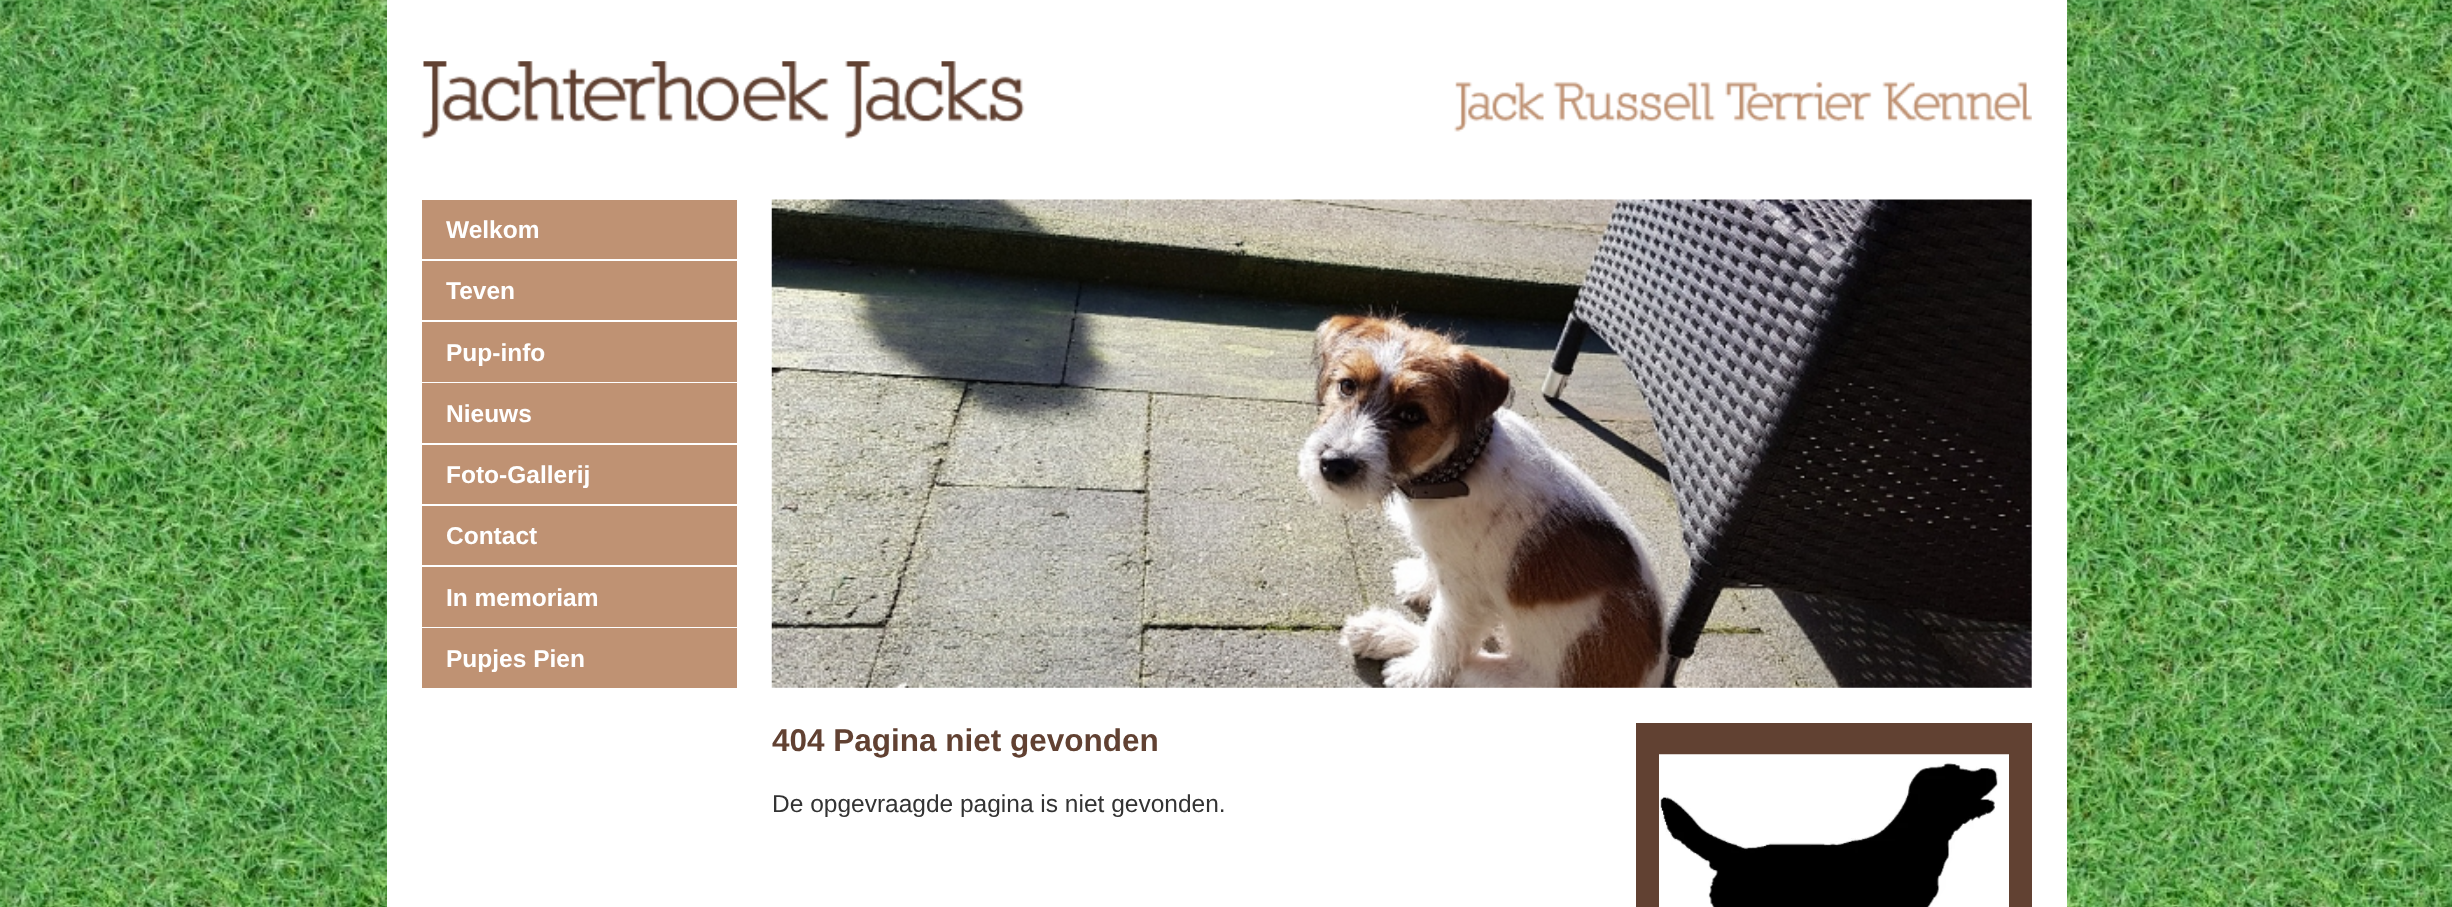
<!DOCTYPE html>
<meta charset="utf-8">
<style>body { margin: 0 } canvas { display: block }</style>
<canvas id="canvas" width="2452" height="907"></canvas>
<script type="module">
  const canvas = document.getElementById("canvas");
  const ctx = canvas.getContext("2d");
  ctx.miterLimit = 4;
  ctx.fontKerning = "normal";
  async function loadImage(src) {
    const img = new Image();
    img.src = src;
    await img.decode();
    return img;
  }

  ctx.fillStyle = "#ffffff";
  ctx.fillRect(0, 0, 2452, 907);
  ctx.drawImage(await loadImage("img1.png"), 0, 0, 2452, 907);
  ctx.fillRect(387, 0, 1680, 907);
  ctx.drawImage(await loadImage("img2.png"), 421, 61, 1611, 78);
  ctx.fillStyle = "#bf9273";
  ctx.fillRect(422, 200, 315, 59);
  ctx.font = "bold 24.5px Liberation Sans";
  ctx.fillStyle = "#ffffff";
  ctx.fillText("Welkom", 446, 238);
  ctx.fillStyle = "#bf9273";
  ctx.fillRect(422, 261, 315, 59);
  ctx.fillStyle = "#ffffff";
  ctx.fillText("Teven", 446, 299);
  ctx.fillStyle = "#bf9273";
  ctx.fillRect(422, 322, 315, 60);
  ctx.fillStyle = "#ffffff";
  ctx.fillText("Pup-info", 446, 361);
  ctx.fillStyle = "#bf9273";
  ctx.fillRect(422, 383, 315, 60);
  ctx.fillStyle = "#ffffff";
  ctx.fillText("Nieuws", 446, 422);
  ctx.fillStyle = "#bf9273";
  ctx.fillRect(422, 445, 315, 59);
  ctx.fillStyle = "#ffffff";
  ctx.fillText("Foto-Gallerij", 446, 483);
  ctx.fillStyle = "#bf9273";
  ctx.fillRect(422, 506, 315, 59);
  ctx.fillStyle = "#ffffff";
  ctx.fillText("Contact", 446, 544);
  ctx.fillStyle = "#bf9273";
  ctx.fillRect(422, 567, 315, 60);
  ctx.fillStyle = "#ffffff";
  ctx.fillText("In memoriam", 446, 606);
  ctx.fillStyle = "#bf9273";
  ctx.fillRect(422, 628, 315, 60);
  ctx.fillStyle = "#ffffff";
  ctx.fillText("Pupjes Pien", 446, 667);
  ctx.drawImage(await loadImage("img3.png"), 771, 199, 1261, 489);
  ctx.font = "bold 31.5px Liberation Sans";
  ctx.fillStyle = "#614132";
  ctx.fillText("404 Pagina niet gevonden", 772, 751);
  ctx.font = "24.5px Liberation Sans";
  ctx.fillStyle = "#333333";
  ctx.fillText("De opgevraagde pagina is niet gevonden.", 772, 812);
  ctx.fillStyle = "#614132";
  ctx.fillRect(1636, 723, 396, 184);
  ctx.drawImage(await loadImage("img4.png"), 1659, 754, 350, 153);
</script>
